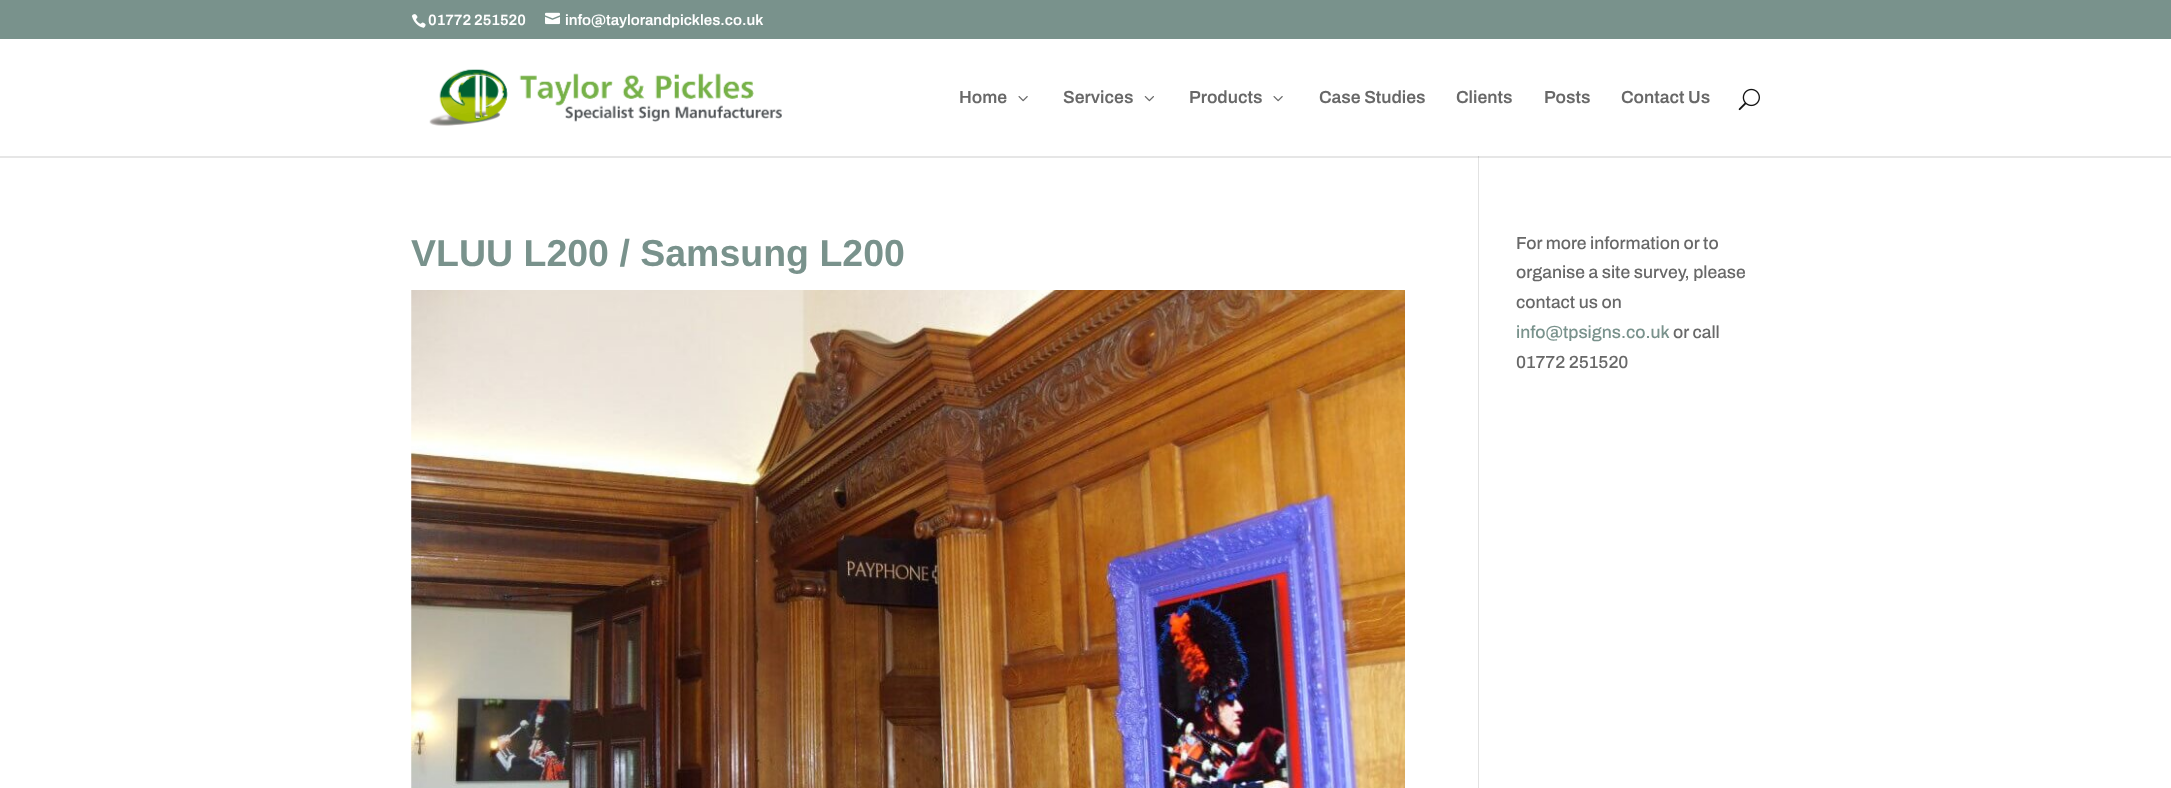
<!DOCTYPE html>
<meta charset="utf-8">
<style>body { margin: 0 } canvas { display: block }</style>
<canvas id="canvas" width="2171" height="788"></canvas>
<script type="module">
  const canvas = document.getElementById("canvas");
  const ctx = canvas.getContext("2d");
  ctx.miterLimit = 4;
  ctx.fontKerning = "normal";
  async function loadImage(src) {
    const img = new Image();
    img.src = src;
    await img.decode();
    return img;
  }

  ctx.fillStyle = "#79928c";
  ctx.fillRect(0, 0, 2171, 788);
  ctx.drawImage(await loadImage("img1.png"), 411, 14, 15, 14);
  ctx.font = "600 15px Archivo";
  ctx.fillStyle = "#ffffff";
  ctx.fillText("01772 251520", 428, 25);
  ctx.drawImage(await loadImage("img2.png"), 545, 12, 15, 13);
  ctx.fillText("info@taylorandpickles.co.uk", 565, 25);
  ctx.fillRect(0, 39, 2171, 117);
  ctx.drawImage(await loadImage("img3.png"), 429, 69, 353, 57);
  ctx.font = "600 17.5px Archivo";
  ctx.fillStyle = "#686868";
  ctx.fillText("Home", 959, 103);
  ctx.drawImage(await loadImage("img4.png"), 1018, 96, 10, 6);
  ctx.fillText("Services", 1063, 103);
  ctx.drawImage(await loadImage("img5.png"), 1144, 96, 10, 6);
  ctx.fillText("Products", 1189, 103);
  ctx.drawImage(await loadImage("img4.png"), 1273, 96, 10, 6);
  ctx.fillText("Case Studies", 1319, 103);
  ctx.fillText("Clients", 1456, 103);
  ctx.fillText("Posts", 1544, 103);
  ctx.fillText("Contact Us", 1621, 103);
  ctx.drawImage(await loadImage("img6.png"), 1738, 88, 22, 23);
  ctx.fillStyle = "#ffffff";
  ctx.fillRect(0, 158, 2171, 630);
  ctx.fillStyle = "#e6e6e6";
  ctx.fillRect(0, 156, 2171, 2);
  ctx.fillStyle = "#e2e2e2";
  ctx.fillRect(1478, 156, 1, 632);
  ctx.fillStyle = "#cbcbcb";
  ctx.fillRect(1478, 156, 1, 2);
  ctx.font = "bold 37.5px Liberation Sans";
  ctx.fillStyle = "#79928c";
  ctx.fillText("VLUU L200 / Samsung L200", 411, 266);
  ctx.drawImage(await loadImage("img7.png"), 411, 290, 994, 498);
  ctx.font = "500 17.5px Archivo";
  ctx.fillStyle = "#686868";
  ctx.fillText("For more information or to", 1516, 249);
  ctx.fillText("organise a site survey, please", 1516, 278);
  ctx.fillText("contact us on", 1516, 308);
  ctx.fillStyle = "#79928c";
  ctx.fillText("info@tpsigns.co.uk", 1516, 338);
  ctx.fillStyle = "#686868";
  ctx.fillText("or call", 1673, 338);
  ctx.fillText("01772 251520", 1516, 368);
</script>
